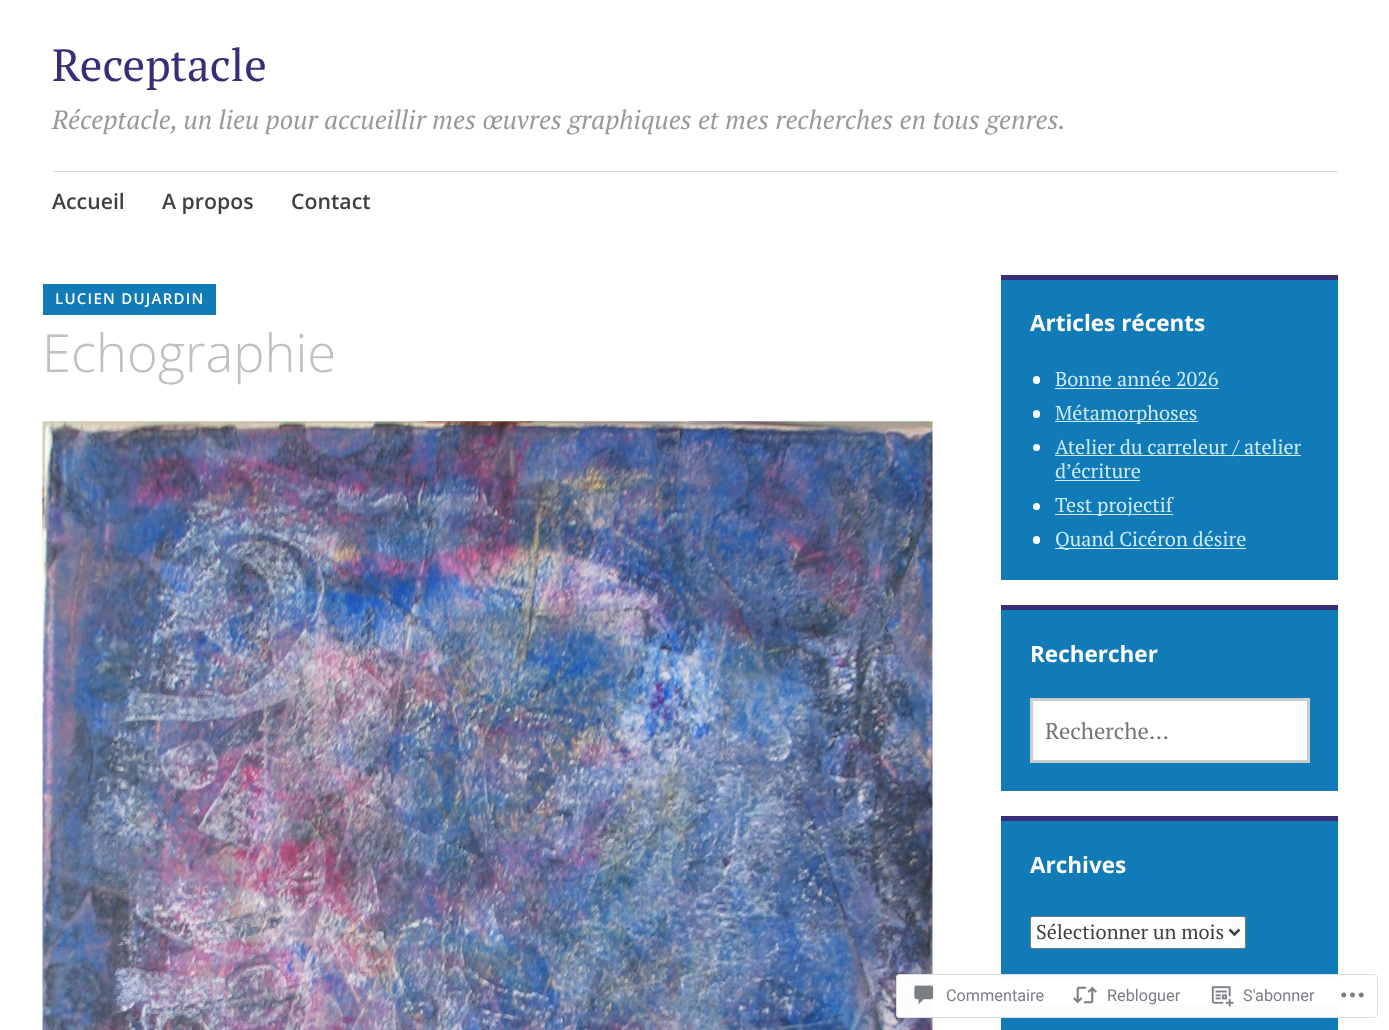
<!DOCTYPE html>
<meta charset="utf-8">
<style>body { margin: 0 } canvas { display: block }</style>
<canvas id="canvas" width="1389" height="1030"></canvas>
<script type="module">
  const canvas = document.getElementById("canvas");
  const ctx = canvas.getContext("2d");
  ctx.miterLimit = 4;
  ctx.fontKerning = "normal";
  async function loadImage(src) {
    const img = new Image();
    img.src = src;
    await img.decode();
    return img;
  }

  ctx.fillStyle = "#ffffff";
  ctx.fillRect(0, 0, 1389, 1030);
  ctx.font = "45px PT Serif";
  ctx.fillStyle = "#362e77";
  ctx.fillText("Receptacle", 52, 81);
  ctx.font = "italic 26.25px PT Serif";
  ctx.fillStyle = "#999999";
  ctx.fillText("Réceptacle, un lieu pour accueillir mes œuvres graphiques et mes recherches en tous genres.", 52, 129);
  ctx.fillStyle = "#d9d9d9";
  ctx.fillRect(53, 171, 1285, 1);
  ctx.font = "600 21.25px Open Sans";
  ctx.fillStyle = "#404040";
  ctx.fillText("Accueil", 52, 209);
  ctx.fillText("A propos", 162, 209);
  ctx.fillText("Contact", 291, 209);
  ctx.fillStyle = "#117bb8";
  ctx.fillRect(43, 284, 173, 31);
  ctx.letterSpacing = "1.25px";
  ctx.font = "600 15px Open Sans";
  ctx.fillStyle = "#ffffff";
  ctx.fillText("LUCIEN DUJARDIN", 55, 304);
  ctx.letterSpacing = "0px";
  ctx.font = "300 52.5px Open Sans";
  ctx.fillStyle = "#c0c0c0";
  ctx.fillText("Echographie", 42, 372);
  ctx.drawImage(await loadImage("img1.png"), 42, 421, 891, 609);
  ctx.fillStyle = "#117bb8";
  ctx.fillRect(1001, 280, 337, 300);
  ctx.fillStyle = "#362e77";
  ctx.fillRect(1001, 275, 337, 5);
  ctx.font = "bold 22.5px Open Sans";
  ctx.fillStyle = "#ffffff";
  ctx.fillText("Articles récents", 1030, 331);
  ctx.beginPath();
  ctx.roundRect(1033, 376, 7, 8, 3.5);
  ctx.fill();
  ctx.font = "20px PT Serif";
  ctx.fillStyle = "#ceeafa";
  ctx.fillText("Bonne année 2026", 1055, 386);
  ctx.fillRect(1055, 388, 164, 1);
  ctx.fillStyle = "#ffffff";
  ctx.beginPath();
  ctx.roundRect(1033, 410, 7, 8, 3.5);
  ctx.fill();
  ctx.fillStyle = "#ceeafa";
  ctx.fillRect(1055, 421, 143, 1);
  ctx.fillText("Métamorphoses", 1055, 420);
  ctx.fillStyle = "#ffffff";
  ctx.beginPath();
  ctx.arc(1036.5, 447.5, 3.5, 0, Math.PI * 2);
  ctx.fill();
  ctx.fillStyle = "#ceeafa";
  ctx.fillRect(1055, 455, 246, 1);
  ctx.fillText("Atelier du carreleur / atelier", 1055, 454);
  ctx.fillText("d’écriture", 1055, 478);
  ctx.fillRect(1055, 480, 85, 1);
  ctx.fillStyle = "#ffffff";
  ctx.beginPath();
  ctx.arc(1036.5, 506.5, 3.5, 0, Math.PI * 2);
  ctx.fill();
  ctx.fillStyle = "#ceeafa";
  ctx.fillRect(1055, 514, 118, 1);
  ctx.fillText("Test projectif", 1055, 512);
  ctx.fillStyle = "#ffffff";
  ctx.beginPath();
  ctx.roundRect(1033, 536, 7, 8, 3.5);
  ctx.fill();
  ctx.fillStyle = "#ceeafa";
  ctx.fillRect(1055, 548, 191, 1);
  ctx.fillText("Quand Cicéron désire", 1055, 546);
  ctx.fillStyle = "#117bb8";
  ctx.fillRect(1001, 610, 337, 181);
  ctx.fillStyle = "#362e77";
  ctx.fillRect(1001, 605, 337, 5);
  ctx.font = "bold 22.5px Open Sans";
  ctx.fillStyle = "#ffffff";
  ctx.fillText("Rechercher", 1030, 662);
  ctx.beginPath();
  ctx.rect(1031.5, 699.5, 277, 62);
  ctx.fill();
  ctx.strokeStyle = "#cccccc";
  ctx.lineWidth = 3;
  ctx.stroke();
  ctx.font = "22.5px PT Serif";
  ctx.fillStyle = "#757575";
  ctx.fillText("Recherche…", 1045, 739);
  ctx.fillStyle = "#117bb8";
  ctx.fillRect(1001, 821, 337, 158);
  ctx.fillStyle = "#362e77";
  ctx.fillRect(1001, 816, 337, 5);
  ctx.font = "bold 22.5px Open Sans";
  ctx.fillStyle = "#ffffff";
  ctx.fillText("Archives", 1030, 873);
  ctx.beginPath();
  ctx.roundRect(1030.5, 916.5, 215, 32, 2);
  ctx.fill();
  ctx.strokeStyle = "#767676";
  ctx.lineWidth = 1;
  ctx.stroke();
  ctx.beginPath();
  ctx.moveTo(1229.5, 929.5);
  ctx.lineTo(1234.5, 934.5);
  ctx.lineTo(1239.5, 929.5);
  ctx.strokeStyle = "#404040";
  ctx.lineWidth = 2.5;
  ctx.stroke();
  ctx.font = "20px PT Serif";
  ctx.fillStyle = "#404040";
  ctx.fillText("Sélectionner un mois", 1036, 939);
  ctx.fillStyle = "#117bb8";
  ctx.fillRect(1001, 1010, 337, 20);
  ctx.fillStyle = "#362e77";
  ctx.fillRect(1001, 1005, 337, 5);
  ctx.fillStyle = "rgba(255, 255, 255, 0.98)";
  ctx.beginPath();
  ctx.roundRect(896, 974, 482, 44, 4);
  ctx.fill();
  ctx.beginPath();
  ctx.roundRect(896.5, 974.5, 481, 43, 3.5);
  ctx.strokeStyle = "rgba(220, 220, 222, 0.98)";
  ctx.lineWidth = 1;
  ctx.stroke();
  ctx.drawImage(await loadImage("img2.png"), 914, 985, 20, 20);
  ctx.font = "16.25px Roboto";
  ctx.fillStyle = "#7b7f85";
  ctx.fillText("Commentaire", 946, 1001);
  ctx.drawImage(await loadImage("img3.png"), 1073, 986, 24, 18);
  ctx.fillText("Rebloguer", 1107, 1001);
  ctx.drawImage(await loadImage("img4.png"), 1211, 986, 23, 21);
  ctx.fillText("S'abonner", 1243, 1001);
  ctx.drawImage(await loadImage("img5.png"), 1341, 992, 23, 6);
</script>
